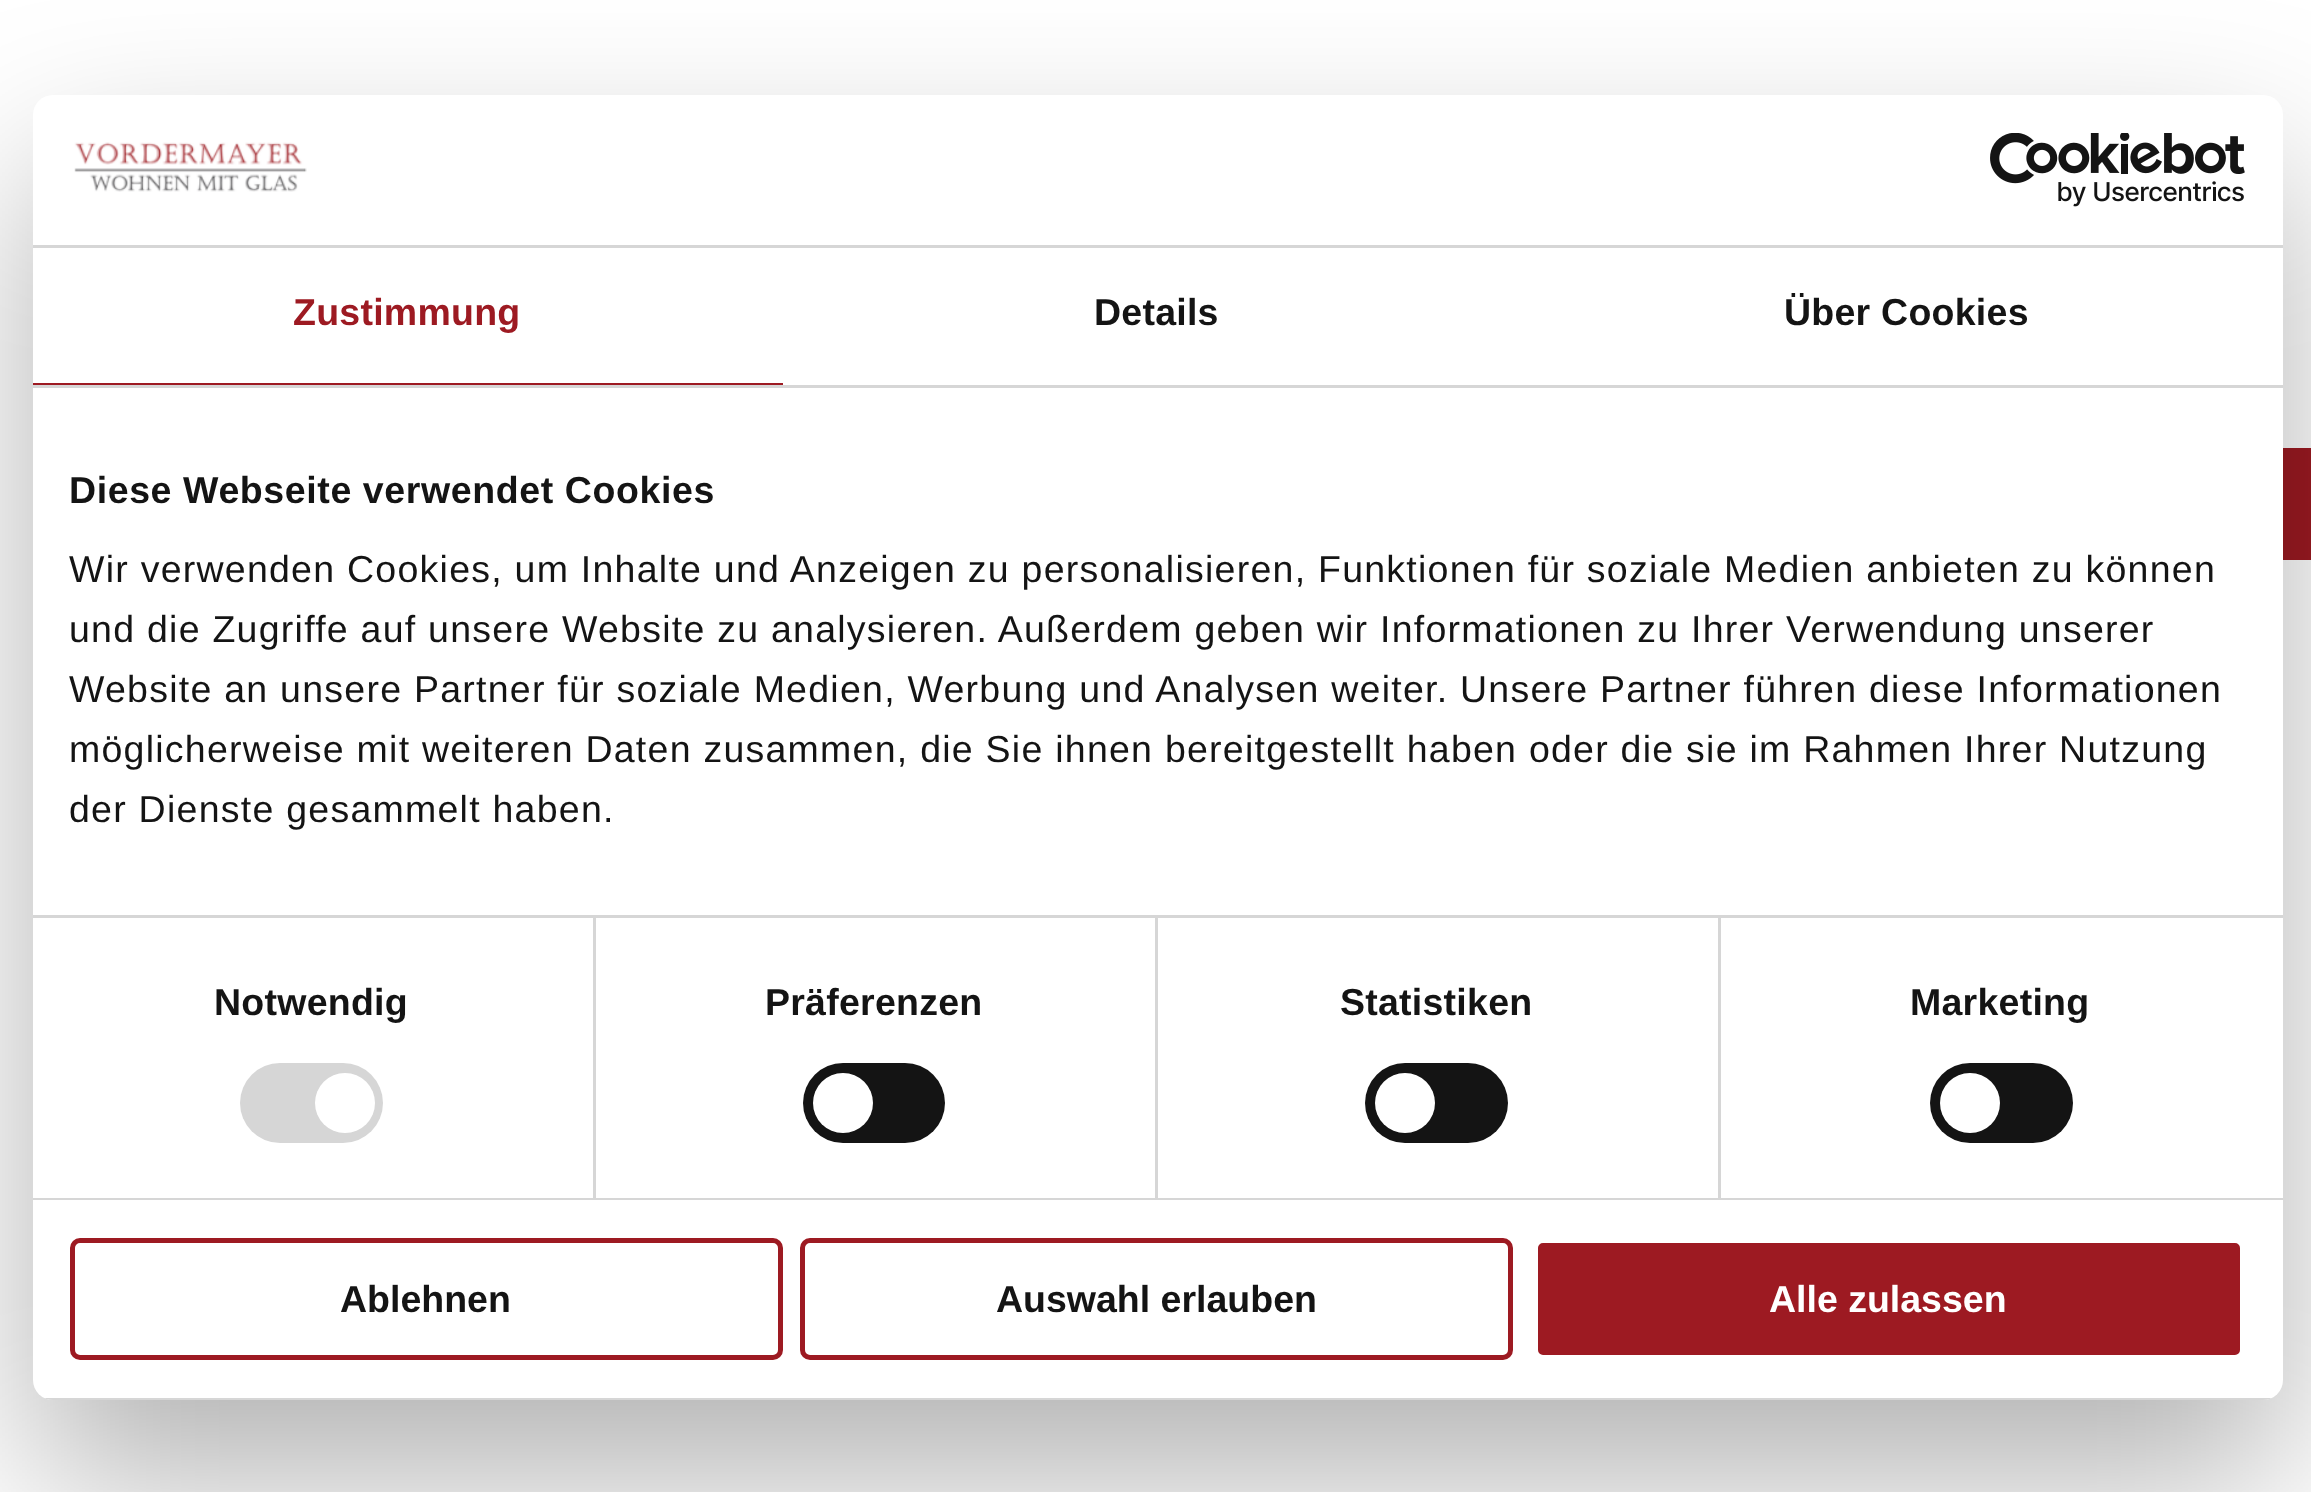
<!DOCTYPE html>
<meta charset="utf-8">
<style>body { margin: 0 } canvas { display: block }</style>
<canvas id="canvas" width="2311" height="1492"></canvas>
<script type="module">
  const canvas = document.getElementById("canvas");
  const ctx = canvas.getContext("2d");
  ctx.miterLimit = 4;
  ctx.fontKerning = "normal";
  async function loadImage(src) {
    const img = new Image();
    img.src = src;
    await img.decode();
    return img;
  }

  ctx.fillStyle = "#ffffff";
  ctx.fillRect(0, 0, 2311, 1492);
  ctx.fillStyle = "#9d1a22";
  ctx.fillRect(2283, 448, 28, 112);
  ctx.fillStyle = "rgba(0, 0, 0, 0.3)";
  ctx.filter = "blur(85px)";
  ctx.beginPath();
  ctx.roundRect(33, 175, 2250, 1305, 20);
  ctx.fill();
  ctx.filter = "none";
  ctx.fillStyle = "#ffffff";
  ctx.beginPath();
  ctx.roundRect(33, 95, 2250, 1305, 20);
  ctx.fill();
  ctx.fillStyle = "#d6d6d6";
  ctx.fillRect(33, 245, 2250, 3);
  ctx.drawImage(await loadImage("img1.png"), 74, 142, 233, 50);
  ctx.drawImage(await loadImage("img2.png"), 1990, 133, 255, 74);
  ctx.fillRect(33, 385, 2250, 3);
  ctx.fillStyle = "#9d1a22";
  ctx.fillRect(33, 383, 750, 2);
  ctx.letterSpacing = "0.25px";
  ctx.font = "bold 37.5px Liberation Sans";
  ctx.fillText("Zustimmung", 293, 325);
  ctx.fillStyle = "#141414";
  ctx.fillText("Details", 1094, 325);
  ctx.fillText("Über Cookies", 1784, 325);
  ctx.fillStyle = "#d6d6d6";
  ctx.fillRect(33, 915, 2250, 3);
  ctx.letterSpacing = "0.6px";
  ctx.fillStyle = "#141414";
  ctx.fillText("Diese Webseite verwendet Cookies", 69, 503);
  ctx.letterSpacing = "1.25px";
  ctx.font = "37.5px Liberation Sans";
  ctx.fillText("Wir verwenden Cookies, um Inhalte und Anzeigen zu personalisieren, Funktionen für soziale Medien anbieten zu können", 69, 582);
  ctx.fillText("und die Zugriffe auf unsere Website zu analysieren. Außerdem geben wir Informationen zu Ihrer Verwendung unserer", 69, 642);
  ctx.fillText("Website an unsere Partner für soziale Medien, Werbung und Analysen weiter. Unsere Partner führen diese Informationen", 69, 702);
  ctx.fillText("möglicherweise mit weiteren Daten zusammen, die Sie ihnen bereitgestellt haben oder die sie im Rahmen Ihrer Nutzung", 69, 762);
  ctx.fillText("der Dienste gesammelt haben.", 69, 822);
  ctx.fillStyle = "#d6d6d6";
  ctx.fillRect(33, 1198, 2250, 2);
  ctx.fillRect(593, 918, 3, 280);
  ctx.letterSpacing = "0.25px";
  ctx.font = "bold 37.5px Liberation Sans";
  ctx.fillStyle = "#141414";
  ctx.fillText("Notwendig", 214, 1015);
  ctx.fillStyle = "#d6d6d6";
  ctx.beginPath();
  ctx.roundRect(240, 1063, 143, 80, 40);
  ctx.fill();
  ctx.fillStyle = "#ffffff";
  ctx.beginPath();
  ctx.arc(345, 1103, 30, 0, Math.PI * 2);
  ctx.fill();
  ctx.fillStyle = "#d6d6d6";
  ctx.fillRect(1155, 918, 3, 280);
  ctx.fillStyle = "#141414";
  ctx.fillText("Präferenzen", 765, 1015);
  ctx.beginPath();
  ctx.roundRect(803, 1063, 142, 80, 40);
  ctx.fill();
  ctx.fillStyle = "#ffffff";
  ctx.beginPath();
  ctx.arc(843, 1103, 30, 0, Math.PI * 2);
  ctx.fill();
  ctx.fillStyle = "#d6d6d6";
  ctx.fillRect(1718, 918, 3, 280);
  ctx.fillStyle = "#141414";
  ctx.fillText("Statistiken", 1340, 1015);
  ctx.beginPath();
  ctx.roundRect(1365, 1063, 143, 80, 40);
  ctx.fill();
  ctx.fillStyle = "#ffffff";
  ctx.beginPath();
  ctx.arc(1405, 1103, 30, 0, Math.PI * 2);
  ctx.fill();
  ctx.fillStyle = "#141414";
  ctx.fillText("Marketing", 1910, 1015);
  ctx.beginPath();
  ctx.roundRect(1930, 1063, 143, 80, 40);
  ctx.fill();
  ctx.fillStyle = "#ffffff";
  ctx.beginPath();
  ctx.arc(1970, 1103, 30, 0, Math.PI * 2);
  ctx.fill();
  ctx.save();
  ctx.beginPath();
  ctx.roundRect(33, 95, 2250, 1305, 20);
  ctx.clip();
  ctx.fillStyle = "#d6d6d6";
  ctx.fillRect(44, 1398, 2228, 2);
  ctx.restore();
  ctx.beginPath();
  ctx.roundRect(72.5, 1240.5, 708, 117, 7.5);
  ctx.strokeStyle = "#9d1a22";
  ctx.lineWidth = 5;
  ctx.stroke();
  ctx.letterSpacing = "0px";
  ctx.fillStyle = "#141414";
  ctx.fillText("Ablehnen", 340, 1312);
  ctx.beginPath();
  ctx.roundRect(802.5, 1240.5, 708, 117, 7.5);
  ctx.stroke();
  ctx.fillText("Auswahl erlauben", 996, 1312);
  ctx.fillStyle = "#9d1a22";
  ctx.beginPath();
  ctx.roundRect(1535.5, 1240.5, 707, 117, 7.5);
  ctx.fill();
  ctx.strokeStyle = "#ffffff";
  ctx.stroke();
  ctx.fillStyle = "#ffffff";
  ctx.fillText("Alle zulassen", 1769, 1312);
</script>
